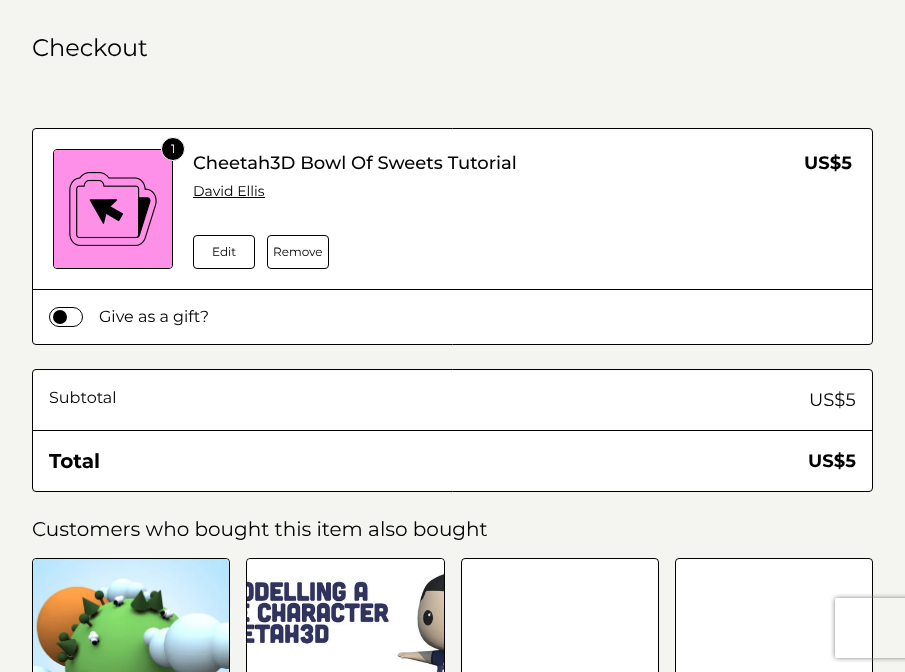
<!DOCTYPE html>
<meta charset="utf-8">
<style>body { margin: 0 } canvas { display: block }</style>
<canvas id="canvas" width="905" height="672"></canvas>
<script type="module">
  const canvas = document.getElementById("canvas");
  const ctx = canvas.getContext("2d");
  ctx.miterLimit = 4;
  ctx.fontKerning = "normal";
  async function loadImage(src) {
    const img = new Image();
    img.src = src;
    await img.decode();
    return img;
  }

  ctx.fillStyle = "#f4f4f0";
  ctx.fillRect(0, 0, 905, 672);
  ctx.font = "24px Montserrat";
  ctx.fillStyle = "#000000";
  ctx.fillText("Checkout", 32, 56);
  ctx.fillStyle = "#ffffff";
  ctx.beginPath();
  ctx.roundRect(32.5, 128.5, 840, 216, 3.5);
  ctx.fill();
  ctx.strokeStyle = "#000000";
  ctx.stroke();
  ctx.beginPath();
  ctx.roundRect(53.5, 149.5, 119, 119, 3.5);
  ctx.stroke();
  ctx.drawImage(await loadImage("img1.png"), 54, 150, 118, 118);
  ctx.fillStyle = "#000000";
  ctx.beginPath();
  ctx.arc(173, 149, 11.5, 0, Math.PI * 2);
  ctx.fill();
  ctx.strokeStyle = "#ffffff";
  ctx.stroke();
  ctx.font = "12px Montserrat";
  ctx.fillStyle = "#ffffff";
  ctx.fillText("1", 171, 153);
  ctx.font = "500 18px Montserrat";
  ctx.fillStyle = "#000000";
  ctx.fillText("Cheetah3D Bowl Of Sweets Tutorial", 193, 169);
  ctx.font = "14px Montserrat";
  ctx.fillText("David Ellis", 193, 196);
  ctx.fillRect(193, 197, 72, 1);
  ctx.beginPath();
  ctx.roundRect(193.5, 235.5, 61, 33, 3.5);
  ctx.strokeStyle = "#000000";
  ctx.stroke();
  ctx.font = "12px Montserrat";
  ctx.fillText("Edit", 212, 256);
  ctx.beginPath();
  ctx.roundRect(267.5, 235.5, 61, 33, 3.5);
  ctx.stroke();
  ctx.fillText("Remove", 273, 256);
  ctx.font = "bold 18px Montserrat";
  ctx.fillText("US$5", 804, 169);
  ctx.fillRect(33, 289, 839, 1);
  ctx.beginPath();
  ctx.roundRect(49.5, 307.5, 33, 19, 9.5);
  ctx.stroke();
  ctx.beginPath();
  ctx.arc(60, 317, 7, 0, Math.PI * 2);
  ctx.fill();
  ctx.font = "16px Montserrat";
  ctx.fillText("Give as a gift?", 99, 322);
  ctx.fillStyle = "#ffffff";
  ctx.beginPath();
  ctx.roundRect(32.5, 369.5, 840, 122, 3.5);
  ctx.fill();
  ctx.stroke();
  ctx.fillStyle = "#000000";
  ctx.fillText("Subtotal", 49, 403);
  ctx.font = "18px Montserrat";
  ctx.fillText("US$5", 809, 406);
  ctx.fillRect(33, 430, 839, 1);
  ctx.font = "bold 20px Montserrat";
  ctx.fillText("Total", 49, 468);
  ctx.font = "bold 18px Montserrat";
  ctx.fillText("US$5", 808, 467);
  ctx.font = "20px Montserrat";
  ctx.fillText("Customers who bought this item also bought", 32, 536);
  ctx.fillStyle = "#ffffff";
  ctx.beginPath();
  ctx.roundRect(32, 558, 198, 114, [4, 4, 0, 0]);
  ctx.fill();
  ctx.beginPath();
  ctx.roundRect(32.5, 558.5, 197, 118, 3.5);
  ctx.stroke();
  ctx.drawImage(await loadImage("img2.png"), 33, 559, 196, 113);
  ctx.beginPath();
  ctx.roundRect(246, 558, 199, 114, [4, 4, 0, 0]);
  ctx.fill();
  ctx.beginPath();
  ctx.roundRect(246.5, 558.5, 198, 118, 3.5);
  ctx.stroke();
  ctx.drawImage(await loadImage("img3.png"), 247, 559, 197, 113);
  ctx.beginPath();
  ctx.roundRect(461, 558, 198, 114, [4, 4, 0, 0]);
  ctx.fill();
  ctx.beginPath();
  ctx.roundRect(461.5, 558.5, 197, 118, 3.5);
  ctx.stroke();
  ctx.beginPath();
  ctx.roundRect(675, 558, 198, 114, [4, 4, 0, 0]);
  ctx.fill();
  ctx.beginPath();
  ctx.roundRect(675.5, 558.5, 197, 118, 3.5);
  ctx.stroke();
  ctx.save();
  ctx.beginPath();
  ctx.moveTo(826, 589);
  ctx.lineTo(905, 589);
  ctx.lineTo(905, 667);
  ctx.lineTo(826, 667);
  ctx.closePath();
  ctx.moveTo(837, 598);
  ctx.lineTo(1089, 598);
  ctx.bezierCurveTo(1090, 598, 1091, 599, 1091, 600);
  ctx.lineTo(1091, 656);
  ctx.bezierCurveTo(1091, 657, 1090, 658, 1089, 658);
  ctx.lineTo(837, 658);
  ctx.bezierCurveTo(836, 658, 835, 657, 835, 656);
  ctx.lineTo(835, 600);
  ctx.bezierCurveTo(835, 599, 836, 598, 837, 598);
  ctx.closePath();
  ctx.clip("evenodd");
  ctx.fillStyle = "#808080";
  ctx.filter = "blur(2.5px)";
  ctx.beginPath();
  ctx.roundRect(835, 598, 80, 60, 2);
  ctx.fill();
  ctx.filter = "none";
  ctx.restore();
</script>
